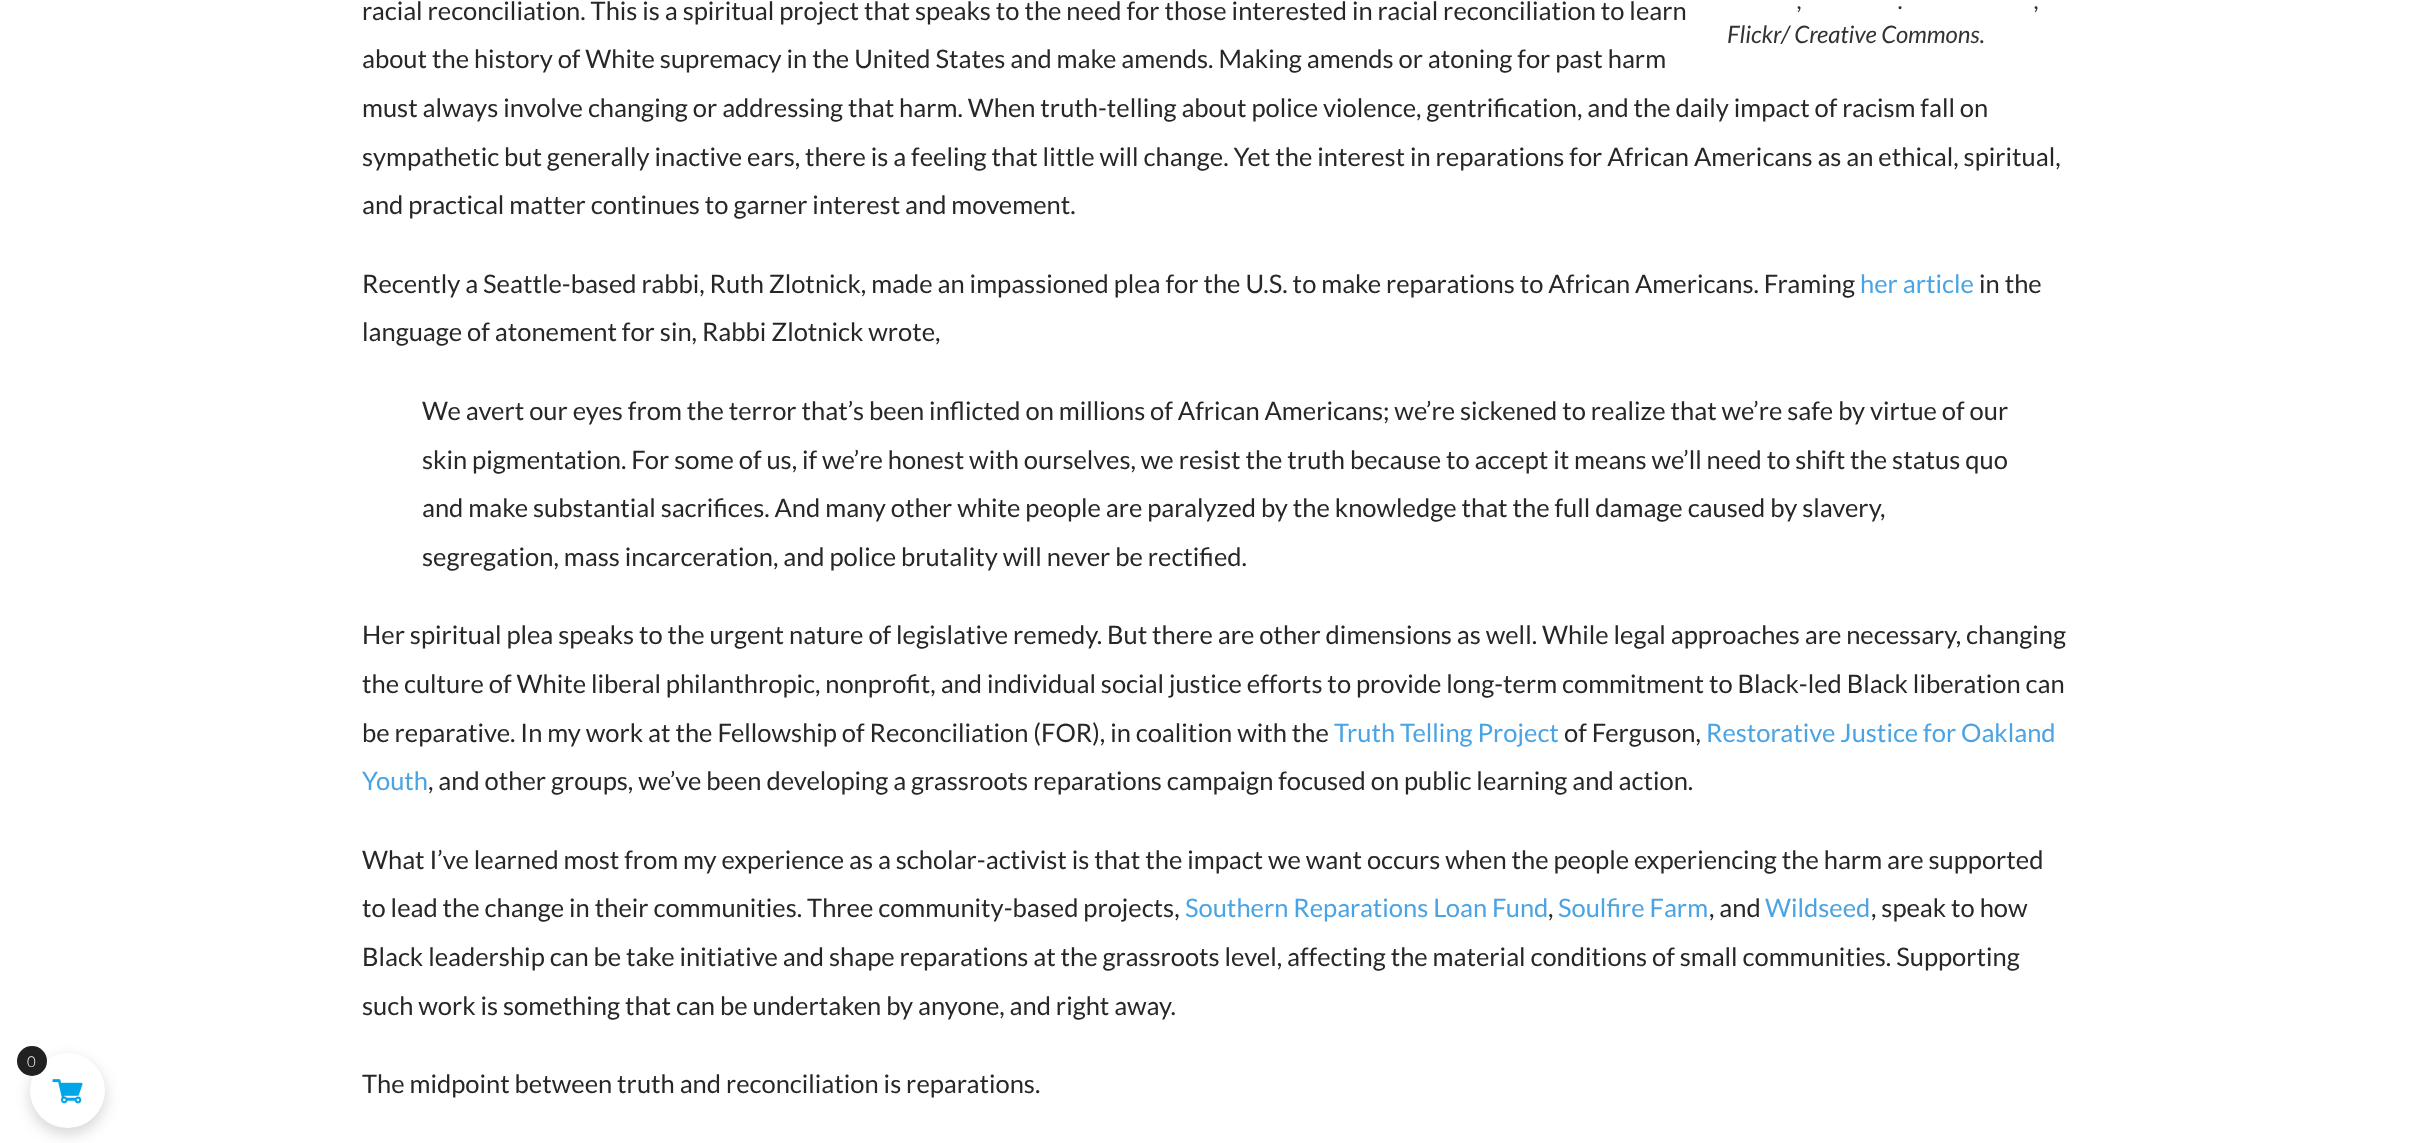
<!DOCTYPE html>
<meta charset="utf-8">
<style>body { margin: 0 } canvas { display: block }</style>
<canvas id="canvas" width="2434" height="1143"></canvas>
<script type="module">
  const canvas = document.getElementById("canvas");
  const ctx = canvas.getContext("2d");
  ctx.miterLimit = 4;
  ctx.fontKerning = "normal";
  async function loadImage(src) {
    const img = new Image();
    img.src = src;
    await img.decode();
    return img;
  }

  ctx.fillStyle = "#ffffff";
  ctx.fillRect(0, 0, 2434, 1143);
  ctx.fillStyle = "rgba(0, 0, 0, 0.17)";
  ctx.filter = "blur(7.5px)";
  ctx.beginPath();
  ctx.roundRect(30, 1059, 75, 75, 37.5);
  ctx.fill();
  ctx.filter = "none";
  ctx.fillStyle = "#ffffff";
  ctx.beginPath();
  ctx.arc(67.5, 1090.5, 37.5, 0, Math.PI * 2);
  ctx.fill();
  ctx.fillStyle = "#212121";
  ctx.beginPath();
  ctx.arc(32, 1061, 15, 0, Math.PI * 2);
  ctx.fill();
  ctx.font = "300 15px Lato";
  ctx.fillStyle = "#ffffff";
  ctx.fillText("0", 27, 1067);
  ctx.drawImage(await loadImage("img1.png"), 52, 1079, 31, 25);
  ctx.font = "25.5px Lato";
  ctx.fillStyle = "#272727";
  ctx.fillText("racial reconciliation. This is a spiritual project that speaks to the need for those interested in racial reconciliation to learn", 362, 20);
  ctx.fillText("about the history of White supremacy in the United States and make amends. Making amends or atoning for past harm", 362, 68);
  ctx.fillText("must always involve changing or addressing that harm. When truth-telling about police violence, gentrification, and the daily impact of racism fall on", 362, 117);
  ctx.fillText("sympathetic but generally inactive ears, there is a feeling that little will change. Yet the interest in reparations for African Americans as an ethical, spiritual,", 362, 166);
  ctx.fillText("and practical matter continues to garner interest and movement.", 362, 214);
  ctx.font = "italic 24px Lato";
  ctx.fillStyle = "#333333";
  ctx.fillText(",", 1797, 9);
  ctx.fillText(".", 1898, 9);
  ctx.fillText(",", 2034, 9);
  ctx.fillText("Flickr/ Creative Commons.", 1727, 43);
  ctx.font = "25.5px Lato";
  ctx.fillStyle = "#272727";
  ctx.fillText("Recently a Seattle-based rabbi, Ruth Zlotnick, made an impassioned plea for the U.S. to make reparations to African Americans. Framing", 362, 293);
  ctx.fillStyle = "#4aa3e2";
  ctx.fillText("her article", 1860, 293);
  ctx.fillStyle = "#272727";
  ctx.fillText("in the", 1979, 293);
  ctx.fillText("language of atonement for sin, Rabbi Zlotnick wrote,", 362, 341);
  ctx.fillText("We avert our eyes from the terror that’s been inflicted on millions of African Americans; we’re sickened to realize that we’re safe by virtue of our", 422, 420);
  ctx.fillText("skin pigmentation. For some of us, if we’re honest with ourselves, we resist the truth because to accept it means we’ll need to shift the status quo", 422, 469);
  ctx.fillText("and make substantial sacrifices. And many other white people are paralyzed by the knowledge that the full damage caused by slavery,", 422, 517);
  ctx.fillText("segregation, mass incarceration, and police brutality will never be rectified.", 422, 566);
  ctx.fillText("Her spiritual plea speaks to the urgent nature of legislative remedy. But there are other dimensions as well. While legal approaches are necessary, changing", 362, 644);
  ctx.fillText("the culture of White liberal philanthropic, nonprofit, and individual social justice efforts to provide long-term commitment to Black-led Black liberation can", 362, 693);
  ctx.fillText("be reparative. In my work at the Fellowship of Reconciliation (FOR), in coalition with the", 362, 742);
  ctx.fillStyle = "#4aa3e2";
  ctx.fillText("Truth Telling Project", 1334, 742);
  ctx.fillStyle = "#272727";
  ctx.fillText("of Ferguson,", 1564, 742);
  ctx.fillStyle = "#4aa3e2";
  ctx.fillText("Restorative Justice for Oakland", 1706, 742);
  ctx.fillText("Youth", 362, 790);
  ctx.fillStyle = "#272727";
  ctx.fillText(", and other groups, we’ve been developing a grassroots reparations campaign focused on public learning and action.", 428, 790);
  ctx.fillText("What I’ve learned most from my experience as a scholar-activist is that the impact we want occurs when the people experiencing the harm are supported", 362, 869);
  ctx.fillText("to lead the change in their communities. Three community-based projects,", 362, 917);
  ctx.fillStyle = "#4aa3e2";
  ctx.fillText("Southern Reparations Loan Fund", 1185, 917);
  ctx.fillStyle = "#272727";
  ctx.fillText(",", 1548, 917);
  ctx.fillStyle = "#4aa3e2";
  ctx.fillText("Soulfire Farm", 1558, 917);
  ctx.fillStyle = "#272727";
  ctx.fillText(", and", 1709, 917);
  ctx.fillStyle = "#4aa3e2";
  ctx.fillText("Wildseed", 1765, 917);
  ctx.fillStyle = "#272727";
  ctx.fillText(", speak to how", 1871, 917);
  ctx.fillText("Black leadership can be take initiative and shape reparations at the grassroots level, affecting the material conditions of small communities. Supporting", 362, 966);
  ctx.fillText("such work is something that can be undertaken by anyone, and right away.", 362, 1015);
  ctx.fillText("The midpoint between truth and reconciliation is reparations.", 362, 1093);
</script>
